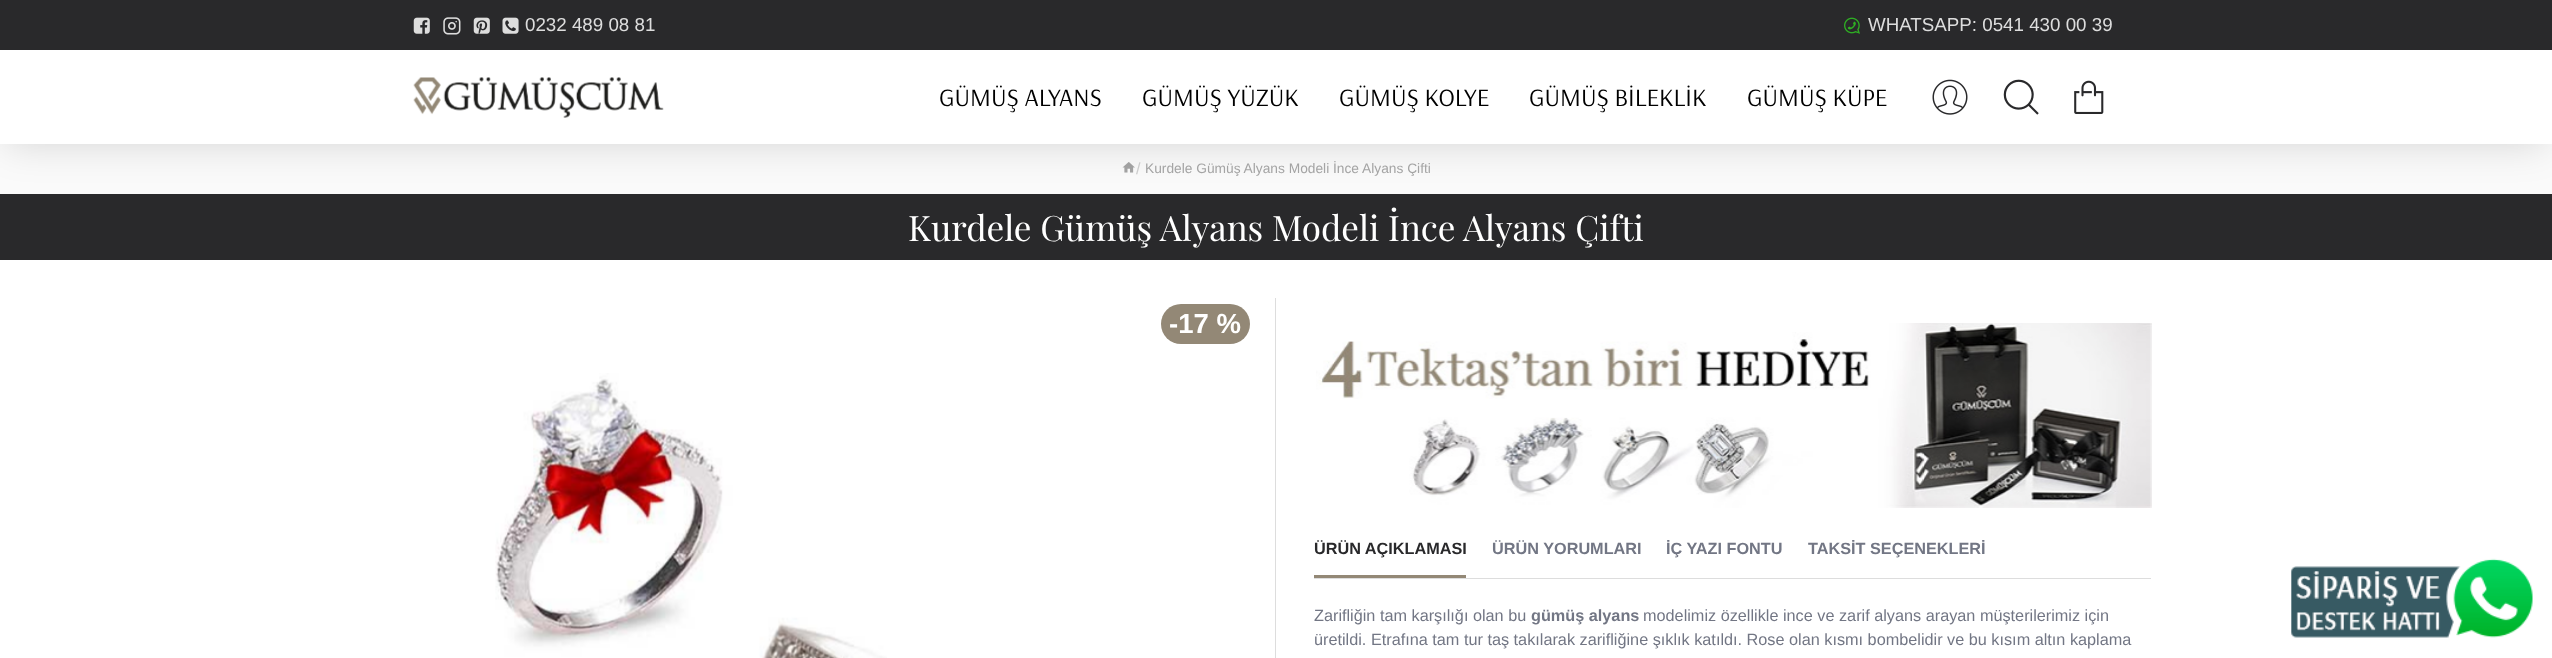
<!DOCTYPE html>
<meta charset="utf-8">
<style>body { margin: 0 } canvas { display: block }</style>
<canvas id="canvas" width="2552" height="658"></canvas>
<script type="module">
  const canvas = document.getElementById("canvas");
  const ctx = canvas.getContext("2d");
  ctx.miterLimit = 4;
  ctx.fontKerning = "normal";
  async function loadImage(src) {
    const img = new Image();
    img.src = src;
    await img.decode();
    return img;
  }

  ctx.fillStyle = "#ffffff";
  ctx.fillRect(0, 0, 2552, 658);
  ctx.fillStyle = "#fafafa";
  ctx.fillRect(0, 144, 2552, 50);
  ctx.drawImage(await loadImage("img10.png"), 1122, 162, 13, 11);
  ctx.fillStyle = "#29292b";
  ctx.fillRect(0, 194, 2552, 66);
  ctx.fillStyle = "rgba(0, 0, 0, 0.15)";
  ctx.filter = "blur(19px)";
  ctx.beginPath();
  ctx.rect(6, 13, 2540, 131);
  ctx.fill();
  ctx.filter = "none";
  ctx.fillStyle = "#ffffff";
  ctx.fillRect(0, 50, 2552, 94);
  ctx.fillStyle = "#29292b";
  ctx.fillRect(0, 0, 2552, 50);
  ctx.drawImage(await loadImage("img1.png"), 413, 17, 17, 17);
  ctx.drawImage(await loadImage("img2.png"), 443, 17, 18, 18);
  ctx.drawImage(await loadImage("img3.png"), 473, 17, 17, 17);
  ctx.drawImage(await loadImage("img4.png"), 502, 17, 17, 17);
  ctx.font = "18.75px Liberation Sans";
  ctx.fillStyle = "#dddddd";
  ctx.fillText("0232 489 08 81", 525, 31);
  ctx.drawImage(await loadImage("img5.png"), 1844, 17, 16, 17);
  ctx.fillText("WHATSAPP: 0541 430 00 39", 1868, 31);
  ctx.drawImage(await loadImage("img6.png"), 413, 77, 251, 41);
  ctx.font = "25px Arsenal";
  ctx.fillStyle = "#000000";
  ctx.fillText("GÜMÜŞ ALYANS", 939, 106);
  ctx.fillText("GÜMÜŞ YÜZÜK", 1142, 106);
  ctx.fillText("GÜMÜŞ KOLYE", 1339, 106);
  ctx.fillText("GÜMÜŞ BİLEKLİK", 1529, 106);
  ctx.fillText("GÜMÜŞ KÜPE", 1747, 106);
  ctx.drawImage(await loadImage("img7.png"), 1932, 79, 36, 36);
  ctx.drawImage(await loadImage("img8.png"), 2003, 79, 36, 36);
  ctx.drawImage(await loadImage("img9.png"), 2074, 80, 30, 34);
  ctx.font = "16.25px Liberation Sans";
  ctx.fillStyle = "#cccccc";
  ctx.fillText("/", 1136, 174);
  ctx.font = "13.75px Liberation Sans";
  ctx.fillStyle = "#a4a4a4";
  ctx.fillText("Kurdele Gümüş Alyans Modeli İnce Alyans Çifti", 1145, 173);
  ctx.font = "35px Playfair Display";
  ctx.fillStyle = "#ffffff";
  ctx.fillText("Kurdele Gümüş Alyans Modeli İnce Alyans Çifti", 908, 241);
  ctx.fillStyle = "#dddddd";
  ctx.fillRect(1275, 298, 1, 360);
  ctx.fillStyle = "#938876";
  ctx.beginPath();
  ctx.roundRect(1161, 304, 89, 40, 20);
  ctx.fill();
  ctx.font = "bold 27.5px Liberation Sans";
  ctx.fillStyle = "#ffffff";
  ctx.fillText("-17 %", 1169, 333);
  ctx.drawImage(await loadImage("img11.png"), 495, 373, 392, 285);
  ctx.drawImage(await loadImage("img12.png"), 1316, 323, 836, 185);
  ctx.fillStyle = "#dddddd";
  ctx.fillRect(1314, 578, 837, 1);
  ctx.fillStyle = "#938876";
  ctx.fillRect(1314, 575, 152, 3);
  ctx.font = "bold 16.25px Liberation Sans";
  ctx.fillStyle = "#29292b";
  ctx.fillText("ÜRÜN AÇIKLAMASI", 1314, 554);
  ctx.fillStyle = "#727684";
  ctx.fillText("ÜRÜN YORUMLARI", 1492, 554);
  ctx.fillText("İÇ YAZI FONTU", 1666, 554);
  ctx.fillText("TAKSİT SEÇENEKLERİ", 1808, 554);
  ctx.font = "16.25px Liberation Sans";
  ctx.fillText("Zarifliğin tam karşılığı olan bu", 1314, 621);
  ctx.font = "bold 16.25px Liberation Sans";
  ctx.fillText("gümüş alyans", 1531, 621);
  ctx.font = "16.25px Liberation Sans";
  ctx.fillText("modelimiz özellikle ince ve zarif alyans arayan müşterilerimiz için", 1643, 621);
  ctx.fillText("üretildi. Etrafına tam tur taş takılarak zarifliğine şıklık katıldı. Rose olan kısmı bombelidir ve bu kısım altın kaplama", 1314, 645);
  ctx.drawImage(await loadImage("img13.png"), 2291, 558, 242, 80);
</script>
